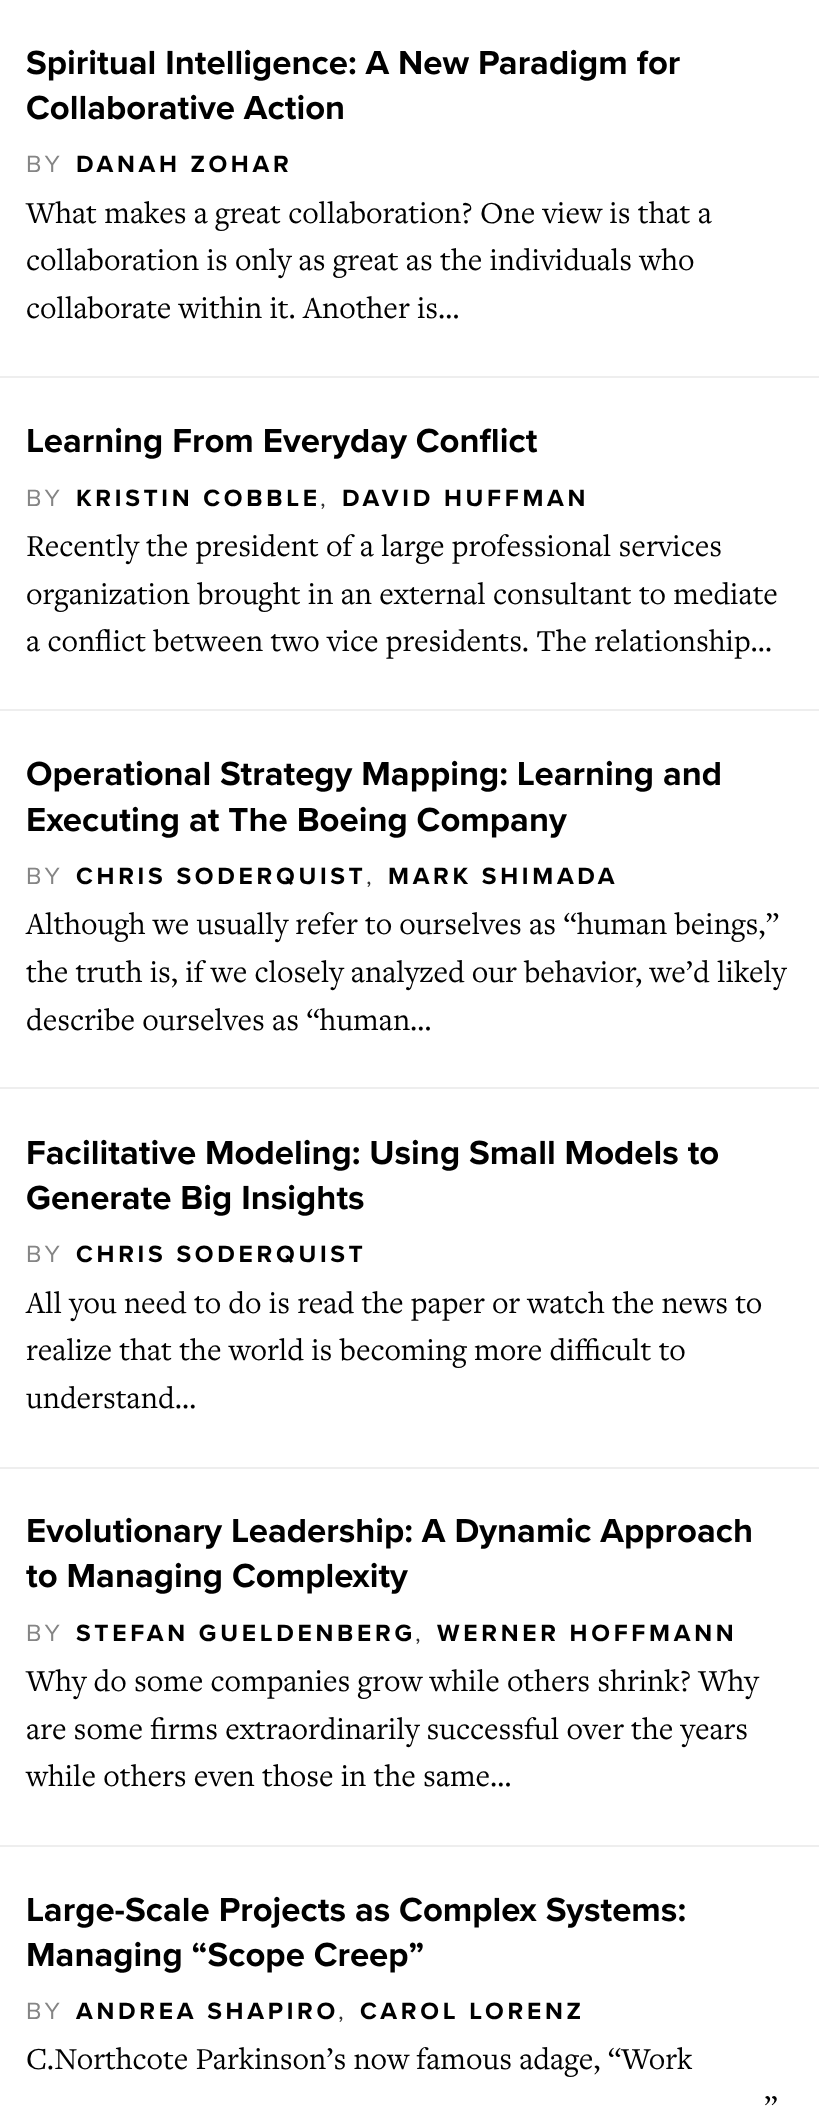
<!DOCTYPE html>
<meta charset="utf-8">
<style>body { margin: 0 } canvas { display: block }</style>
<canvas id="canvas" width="819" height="2111"></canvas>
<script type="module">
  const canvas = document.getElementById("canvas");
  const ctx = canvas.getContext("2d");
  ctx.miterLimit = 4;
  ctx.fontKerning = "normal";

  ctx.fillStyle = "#ffffff";
  ctx.fillRect(0, 0, 819, 2111);
  ctx.fillStyle = "#eeeeee";
  ctx.fillRect(0, 376, 819, 2);
  ctx.font = "bold 34.65px Proxima Nova";
  ctx.fillStyle = "#000000";
  ctx.fillText("Spiritual Intelligence: A New Paradigm for", 26, 74);
  ctx.fillText("Collaborative Action", 26, 119);
  ctx.letterSpacing = "3.7px";
  ctx.font = "24.5px Proxima Nova";
  ctx.fillStyle = "#858585";
  ctx.fillText("BY", 26, 172);
  ctx.font = "bold 24.5px Proxima Nova";
  ctx.fillStyle = "#000000";
  ctx.fillText("DANAH ZOHAR", 76, 172);
  ctx.letterSpacing = "0px";
  ctx.font = "31.75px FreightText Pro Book";
  ctx.fillText("What makes a great collaboration? One view is that a", 26, 223);
  ctx.fillText("collaboration is only as great as the individuals who", 26, 270);
  ctx.fillText("collaborate within it. Another is…", 26, 318);
  ctx.fillStyle = "#eeeeee";
  ctx.fillRect(0, 709, 819, 2);
  ctx.font = "bold 34.65px Proxima Nova";
  ctx.fillStyle = "#000000";
  ctx.fillText("Learning From Everyday Conflict", 26, 452);
  ctx.letterSpacing = "3.7px";
  ctx.font = "24.5px Proxima Nova";
  ctx.fillStyle = "#858585";
  ctx.fillText("BY", 26, 506);
  ctx.font = "bold 24.5px Proxima Nova";
  ctx.fillStyle = "#000000";
  ctx.fillText("KRISTIN COBBLE", 76, 506);
  ctx.font = "24.5px Proxima Nova";
  ctx.fillStyle = "#333333";
  ctx.fillText(",", 320, 506);
  ctx.font = "bold 24.5px Proxima Nova";
  ctx.fillStyle = "#000000";
  ctx.fillText("DAVID HUFFMAN", 342, 506);
  ctx.letterSpacing = "0px";
  ctx.font = "31.75px FreightText Pro Book";
  ctx.fillText("Recently the president of a large professional services", 26, 556);
  ctx.fillText("organization brought in an external consultant to mediate", 26, 604);
  ctx.fillText("a conflict between two vice presidents. The relationship…", 26, 651);
  ctx.fillStyle = "#eeeeee";
  ctx.fillRect(0, 1087, 819, 2);
  ctx.font = "bold 34.65px Proxima Nova";
  ctx.fillStyle = "#000000";
  ctx.fillText("Operational Strategy Mapping: Learning and", 26, 785);
  ctx.fillText("Executing at The Boeing Company", 26, 831);
  ctx.letterSpacing = "3.7px";
  ctx.font = "24.5px Proxima Nova";
  ctx.fillStyle = "#858585";
  ctx.fillText("BY", 26, 884);
  ctx.font = "bold 24.5px Proxima Nova";
  ctx.fillStyle = "#000000";
  ctx.fillText("CHRIS SODERQUIST", 76, 884);
  ctx.font = "24.5px Proxima Nova";
  ctx.fillStyle = "#333333";
  ctx.fillText(",", 366, 884);
  ctx.font = "bold 24.5px Proxima Nova";
  ctx.fillStyle = "#000000";
  ctx.fillText("MARK SHIMADA", 388, 884);
  ctx.letterSpacing = "0px";
  ctx.font = "31.75px FreightText Pro Book";
  ctx.fillText("Although we usually refer to ourselves as “human beings,”", 26, 934);
  ctx.fillText("the truth is, if we closely analyzed our behavior, we’d likely", 26, 982);
  ctx.fillText("describe ourselves as “human…", 26, 1030);
  ctx.fillStyle = "#eeeeee";
  ctx.fillRect(0, 1467, 819, 2);
  ctx.font = "bold 34.65px Proxima Nova";
  ctx.fillStyle = "#000000";
  ctx.fillText("Facilitative Modeling: Using Small Models to", 26, 1164);
  ctx.fillText("Generate Big Insights", 26, 1209);
  ctx.letterSpacing = "3.7px";
  ctx.font = "24.5px Proxima Nova";
  ctx.fillStyle = "#858585";
  ctx.fillText("BY", 26, 1262);
  ctx.font = "bold 24.5px Proxima Nova";
  ctx.fillStyle = "#000000";
  ctx.fillText("CHRIS SODERQUIST", 76, 1262);
  ctx.letterSpacing = "0px";
  ctx.font = "31.75px FreightText Pro Book";
  ctx.fillText("All you need to do is read the paper or watch the news to", 26, 1313);
  ctx.fillText("realize that the world is becoming more difficult to", 26, 1360);
  ctx.fillText("understand…", 26, 1408);
  ctx.fillStyle = "#eeeeee";
  ctx.fillRect(0, 1845, 819, 2);
  ctx.font = "bold 34.65px Proxima Nova";
  ctx.fillStyle = "#000000";
  ctx.fillText("Evolutionary Leadership: A Dynamic Approach", 26, 1542);
  ctx.fillText("to Managing Complexity", 26, 1587);
  ctx.letterSpacing = "3.7px";
  ctx.font = "24.5px Proxima Nova";
  ctx.fillStyle = "#858585";
  ctx.fillText("BY", 26, 1641);
  ctx.font = "bold 24.5px Proxima Nova";
  ctx.fillStyle = "#000000";
  ctx.fillText("STEFAN GUELDENBERG", 76, 1641);
  ctx.font = "24.5px Proxima Nova";
  ctx.fillStyle = "#333333";
  ctx.fillText(",", 415, 1641);
  ctx.font = "bold 24.5px Proxima Nova";
  ctx.fillStyle = "#000000";
  ctx.fillText("WERNER HOFFMANN", 437, 1641);
  ctx.letterSpacing = "0px";
  ctx.font = "31.75px FreightText Pro Book";
  ctx.fillText("Why do some companies grow while others shrink? Why", 26, 1691);
  ctx.fillText("are some firms extraordinarily successful over the years", 26, 1739);
  ctx.fillText("while others even those in the same…", 26, 1786);
  ctx.font = "bold 34.65px Proxima Nova";
  ctx.fillText("Large-Scale Projects as Complex Systems:", 26, 1921);
  ctx.fillText("Managing “Scope Creep”", 26, 1966);
  ctx.letterSpacing = "3.7px";
  ctx.font = "24.5px Proxima Nova";
  ctx.fillStyle = "#858585";
  ctx.fillText("BY", 26, 2019);
  ctx.font = "bold 24.5px Proxima Nova";
  ctx.fillStyle = "#000000";
  ctx.fillText("ANDREA SHAPIRO", 76, 2019);
  ctx.font = "24.5px Proxima Nova";
  ctx.fillStyle = "#333333";
  ctx.fillText(",", 338, 2019);
  ctx.font = "bold 24.5px Proxima Nova";
  ctx.fillStyle = "#000000";
  ctx.fillText("CAROL LORENZ", 360, 2019);
  ctx.letterSpacing = "0px";
  ctx.font = "31.75px FreightText Pro Book";
  ctx.fillText("C.Northcote Parkinson’s now famous adage, “Work", 26, 2069);
  ctx.fillText("”", 764, 2117);
</script>
